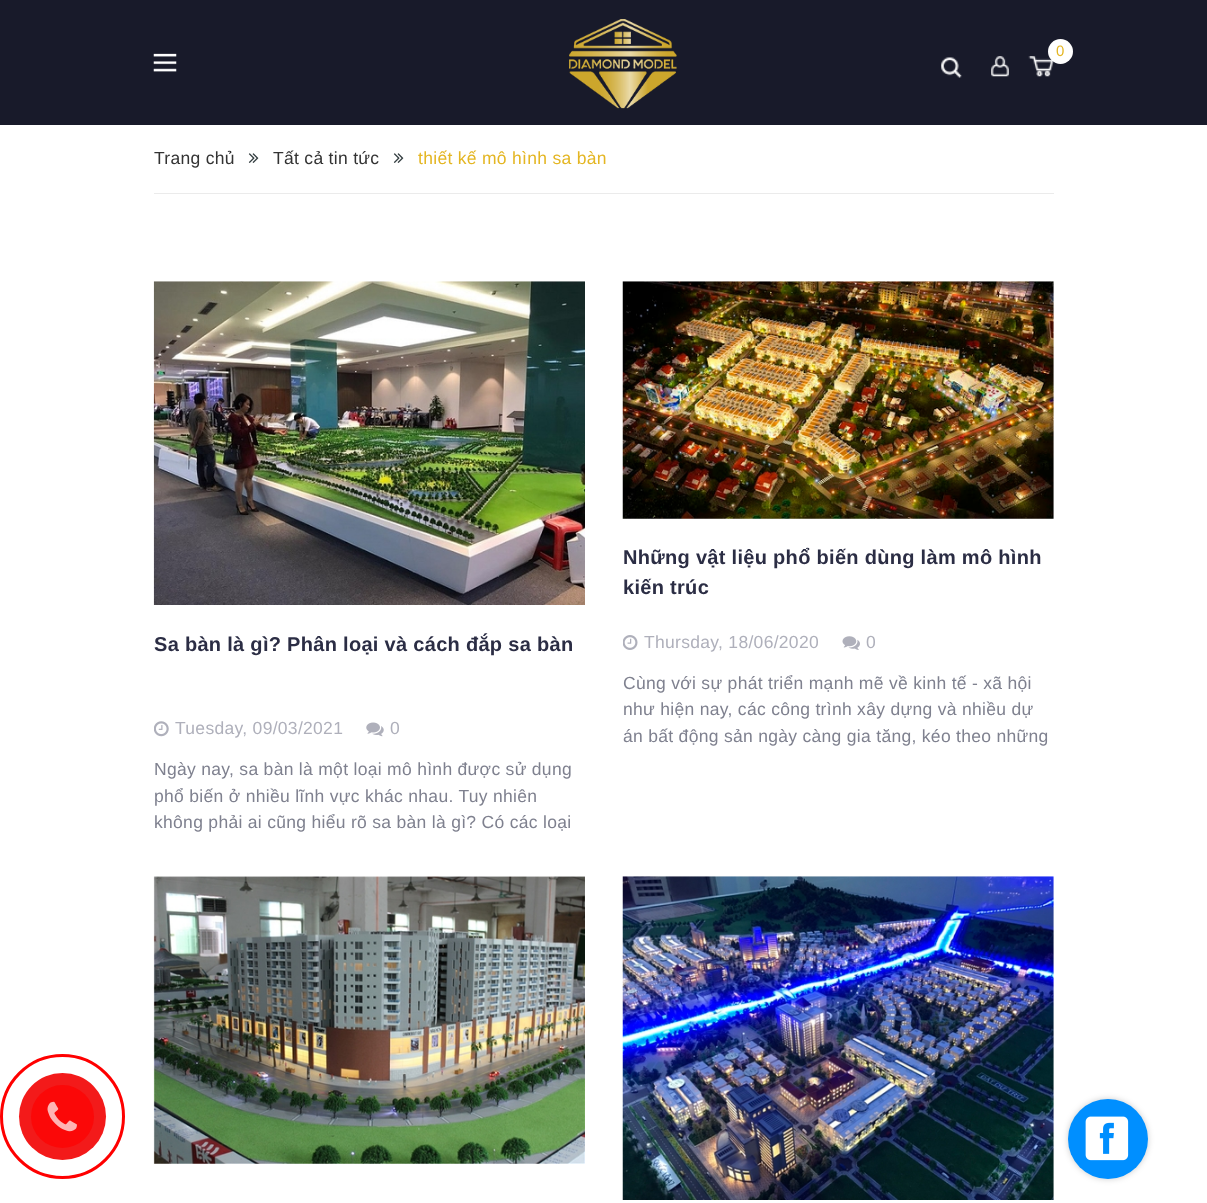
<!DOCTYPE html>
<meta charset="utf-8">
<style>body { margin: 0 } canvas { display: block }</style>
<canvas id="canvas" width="1207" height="1203"></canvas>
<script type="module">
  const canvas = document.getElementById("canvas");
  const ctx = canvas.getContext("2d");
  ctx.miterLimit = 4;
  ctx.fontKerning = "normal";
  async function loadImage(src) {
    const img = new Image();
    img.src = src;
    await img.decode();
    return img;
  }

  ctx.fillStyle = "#ffffff";
  ctx.fillRect(0, 0, 1207, 1203);
  ctx.fillStyle = "#181a2a";
  ctx.fillRect(0, 0, 1207, 125);
  ctx.drawImage(await loadImage("img1.png"), 569, 19, 108, 90);
  ctx.drawImage(await loadImage("img2.png"), 1028, 56, 26, 21);
  ctx.fillStyle = "#ffffff";
  ctx.beginPath();
  ctx.arc(1060.5, 51.5, 12.5, 0, Math.PI * 2);
  ctx.fill();
  ctx.letterSpacing = "0.3px";
  ctx.font = "15px Liberation Sans";
  ctx.fillStyle = "#e4b623";
  ctx.fillText("0", 1056, 56);
  ctx.drawImage(await loadImage("img3.png"), 941, 57, 21, 21);
  ctx.drawImage(await loadImage("img4.png"), 991, 56, 18, 21);
  ctx.drawImage(await loadImage("img5.png"), 153, 53, 24, 19);
  ctx.fillStyle = "#ebebeb";
  ctx.fillRect(154, 193, 900, 1);
  ctx.font = "17.5px Liberation Sans";
  ctx.fillStyle = "#333333";
  ctx.fillText("Trang chủ", 154, 164);
  ctx.drawImage(await loadImage("img6.png"), 248, 153, 11, 10);
  ctx.fillText("Tất cả tin tức", 273, 164);
  ctx.drawImage(await loadImage("img6.png"), 393, 153, 11, 10);
  ctx.fillStyle = "#e4b623";
  ctx.fillText("thiết kế mô hình sa bàn", 418, 164);
  ctx.drawImage(await loadImage("img7.png"), 153, 281, 432, 324);
  ctx.font = "bold 20px Liberation Sans";
  ctx.fillStyle = "#2b2d44";
  ctx.fillText("Sa bàn là gì? Phân loại và cách đắp sa bàn", 154, 651);
  ctx.drawImage(await loadImage("img8.png"), 154, 721, 15, 16);
  ctx.font = "17.5px Liberation Sans";
  ctx.fillStyle = "#afb0bb";
  ctx.fillText("Tuesday, 09/03/2021", 175, 734);
  ctx.drawImage(await loadImage("img9.png"), 366, 722, 18, 15);
  ctx.fillText("0", 390, 734);
  ctx.fillStyle = "#7f818f";
  ctx.fillText("Ngày nay, sa bàn là một loại mô hình được sử dụng", 154, 775);
  ctx.fillText("phổ biến ở nhiều lĩnh vực khác nhau. Tuy nhiên", 154, 802);
  ctx.fillText("không phải ai cũng hiểu rõ sa bàn là gì? Có các loại", 154, 828);
  ctx.drawImage(await loadImage("img10.png"), 622, 281, 432, 238);
  ctx.font = "bold 20px Liberation Sans";
  ctx.fillStyle = "#2b2d44";
  ctx.fillText("Những vật liệu phổ biến dùng làm mô hình", 623, 564);
  ctx.fillText("kiến trúc", 623, 594);
  ctx.drawImage(await loadImage("img11.png"), 623, 635, 15, 15);
  ctx.font = "17.5px Liberation Sans";
  ctx.fillStyle = "#afb0bb";
  ctx.fillText("Thursday, 18/06/2020", 644, 648);
  ctx.drawImage(await loadImage("img12.png"), 842, 636, 18, 14);
  ctx.fillText("0", 866, 648);
  ctx.fillStyle = "#7f818f";
  ctx.fillText("Cùng với sự phát triển mạnh mẽ về kinh tế - xã hội", 623, 689);
  ctx.fillText("như hiện nay, các công trình xây dựng và nhiều dự", 623, 715);
  ctx.fillText("án bất động sản ngày càng gia tăng, kéo theo những", 623, 742);
  ctx.drawImage(await loadImage("img13.png"), 153, 876, 432, 288);
  ctx.drawImage(await loadImage("img14.png"), 622, 876, 432, 324);
  ctx.beginPath();
  ctx.arc(62.5, 1116.5, 61, 0, Math.PI * 2);
  ctx.strokeStyle = "#ff0000";
  ctx.lineWidth = 3;
  ctx.stroke();
  ctx.fillStyle = "#f31a1a";
  ctx.beginPath();
  ctx.arc(62.5, 1116.5, 43.5, 0, Math.PI * 2);
  ctx.fill();
  ctx.fillStyle = "#fb0808";
  ctx.beginPath();
  ctx.arc(62.5, 1116.5, 31.5, 0, Math.PI * 2);
  ctx.fill();
  ctx.drawImage(await loadImage("img15.png"), 47, 1101, 30, 31);
  ctx.fillStyle = "rgba(0, 0, 0, 0.2)";
  ctx.filter = "blur(3px)";
  ctx.beginPath();
  ctx.roundRect(1068, 1099, 80, 80, 40);
  ctx.fill();
  ctx.filter = "none";
  ctx.fillStyle = "#008fff";
  ctx.beginPath();
  ctx.arc(1108, 1139, 40, 0, Math.PI * 2);
  ctx.fill();
  ctx.drawImage(await loadImage("img16.png"), 1085, 1116, 44, 45);
</script>
